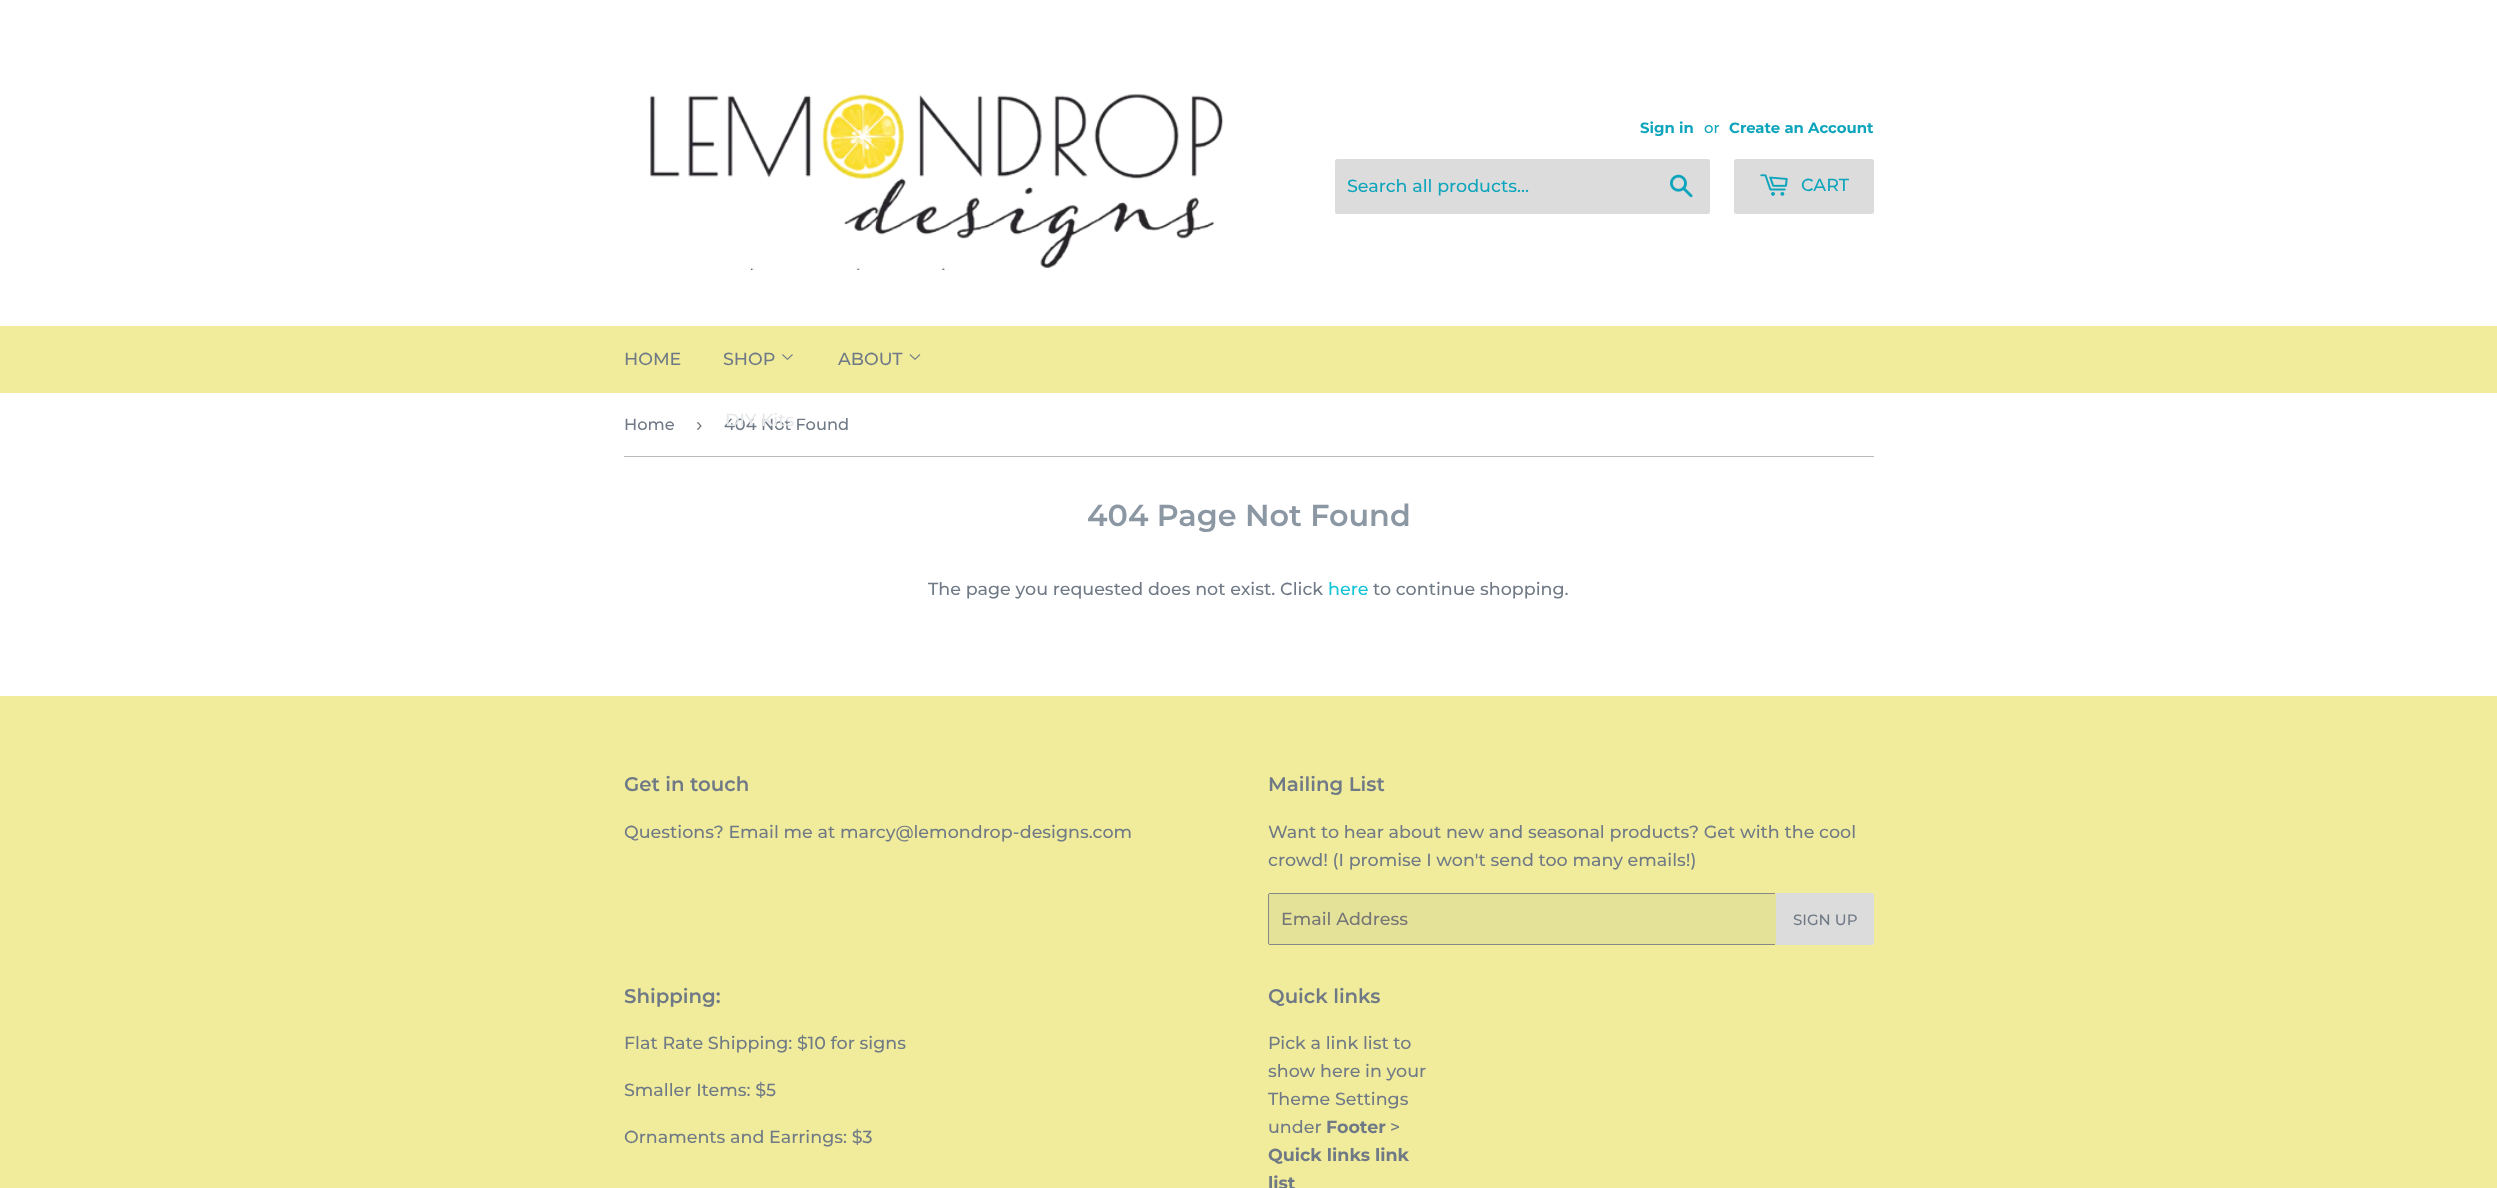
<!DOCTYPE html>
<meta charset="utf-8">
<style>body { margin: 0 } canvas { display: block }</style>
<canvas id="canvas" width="2497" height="1188"></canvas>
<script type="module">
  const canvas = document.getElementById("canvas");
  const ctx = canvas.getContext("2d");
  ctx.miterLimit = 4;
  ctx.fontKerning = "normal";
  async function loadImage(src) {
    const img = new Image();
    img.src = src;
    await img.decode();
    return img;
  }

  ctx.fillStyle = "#ffffff";
  ctx.fillRect(0, 0, 2497, 1188);
  ctx.drawImage(await loadImage("img1.png"), 650, 94, 574, 176);
  ctx.font = "bold 14.9px Montserrat";
  ctx.fillStyle = "#0ea5bc";
  ctx.fillText("Sign in", 1640, 133);
  ctx.font = "500 14.9px Montserrat";
  ctx.fillText("or", 1704, 133);
  ctx.font = "bold 14.9px Montserrat";
  ctx.fillText("Create an Account", 1729, 133);
  ctx.fillStyle = "#dcdcdc";
  ctx.beginPath();
  ctx.roundRect(1335, 159, 375, 55, 2.5);
  ctx.fill();
  ctx.font = "500 17.5px Montserrat";
  ctx.fillStyle = "#0ea5bc";
  ctx.fillText("Search all products...", 1347, 192);
  ctx.drawImage(await loadImage("img2.png"), 1670, 174, 23, 24);
  ctx.fillStyle = "#dcdcdc";
  ctx.beginPath();
  ctx.roundRect(1734, 159, 140, 55, 2.5);
  ctx.fill();
  ctx.drawImage(await loadImage("img3.png"), 1760, 174, 28, 22);
  ctx.fillStyle = "#0ea5bc";
  ctx.fillText("CART", 1801, 191);
  ctx.fillStyle = "#f1ec9b";
  ctx.fillRect(0, 326, 2497, 67);
  ctx.fillStyle = "#707a86";
  ctx.fillText("HOME", 624, 365);
  ctx.fillText("SHOP", 723, 365);
  ctx.drawImage(await loadImage("img4.png"), 782, 354, 11, 6);
  ctx.font = "500 16.25px Montserrat";
  ctx.fillText("404 Not Found", 724, 430);
  ctx.font = "500 17.5px Montserrat";
  ctx.fillStyle = "#e6e8ea";
  ctx.fillText("DIY Kits", 725, 426);
  ctx.fillStyle = "#707a86";
  ctx.fillText("ABOUT", 838, 365);
  ctx.drawImage(await loadImage("img5.png"), 909, 354, 12, 6);
  ctx.fillStyle = "#bbbbbb";
  ctx.fillRect(624, 456, 1250, 1);
  ctx.font = "500 16.25px Montserrat";
  ctx.fillStyle = "#707a86";
  ctx.fillText("Home", 624, 430);
  ctx.font = "19px Liberation Sans";
  ctx.fillStyle = "#767676";
  ctx.fillText("›", 696, 431);
  ctx.font = "600 30.25px Montserrat";
  ctx.fillStyle = "#8c97a4";
  ctx.fillText("404 Page Not Found", 1087, 526);
  ctx.font = "500 17.5px Montserrat";
  ctx.fillStyle = "#707a86";
  ctx.fillText("The page you requested does not exist. Click", 928, 595);
  ctx.fillStyle = "#11c4d6";
  ctx.fillText("here", 1328, 595);
  ctx.fillStyle = "#707a86";
  ctx.fillText("to continue shopping.", 1373, 595);
  ctx.fillStyle = "#f1ec9b";
  ctx.fillRect(0, 696, 2497, 492);
  ctx.font = "600 19.75px Montserrat";
  ctx.fillStyle = "#707a86";
  ctx.fillText("Get in touch", 624, 791);
  ctx.font = "500 17.5px Montserrat";
  ctx.fillText("Questions? Email me at marcy@lemondrop-designs.com", 624, 838);
  ctx.font = "600 19.75px Montserrat";
  ctx.fillText("Mailing List", 1268, 791);
  ctx.font = "500 17.5px Montserrat";
  ctx.fillText("Want to hear about new and seasonal products? Get with the cool", 1268, 838);
  ctx.fillText("crowd! (I promise I won't send too many emails!)", 1268, 866);
  ctx.fillStyle = "#e4e199";
  ctx.beginPath();
  ctx.roundRect(1268, 893, 508, 52, 2.5);
  ctx.fill();
  ctx.fillStyle = "#888888";
  ctx.fillRect(1269, 893, 506, 1);
  ctx.fillRect(1269, 944, 506, 1);
  ctx.fillRect(1268, 894, 1, 50);
  ctx.fillStyle = "#767676";
  ctx.fillText("Email Address", 1281, 925);
  ctx.fillStyle = "#dcdcdc";
  ctx.beginPath();
  ctx.roundRect(1776, 893, 98, 52, [0, 2.5, 2.5, 0]);
  ctx.fill();
  ctx.font = "500 15px Montserrat";
  ctx.fillStyle = "#707a86";
  ctx.fillText("SIGN UP", 1793, 925);
  ctx.font = "600 19.75px Montserrat";
  ctx.fillText("Shipping:", 624, 1003);
  ctx.font = "500 17.5px Montserrat";
  ctx.fillText("Flat Rate Shipping: $10 for signs", 624, 1049);
  ctx.fillText("Smaller Items: $5", 624, 1096);
  ctx.fillText("Ornaments and Earrings: $3", 624, 1143);
  ctx.font = "600 19.75px Montserrat";
  ctx.fillText("Quick links", 1268, 1003);
  ctx.font = "500 17.5px Montserrat";
  ctx.fillText("Pick a link list to", 1268, 1049);
  ctx.fillText("show here in your", 1268, 1077);
  ctx.fillText("Theme Settings", 1268, 1105);
  ctx.fillText("under", 1268, 1133);
  ctx.font = "bold 17.5px Montserrat";
  ctx.fillText("Footer", 1326, 1133);
  ctx.font = "500 17.5px Montserrat";
  ctx.fillText(">", 1390, 1133);
  ctx.font = "bold 17.5px Montserrat";
  ctx.fillText("Quick links link", 1268, 1161);
  ctx.fillText("list", 1268, 1189);
</script>
